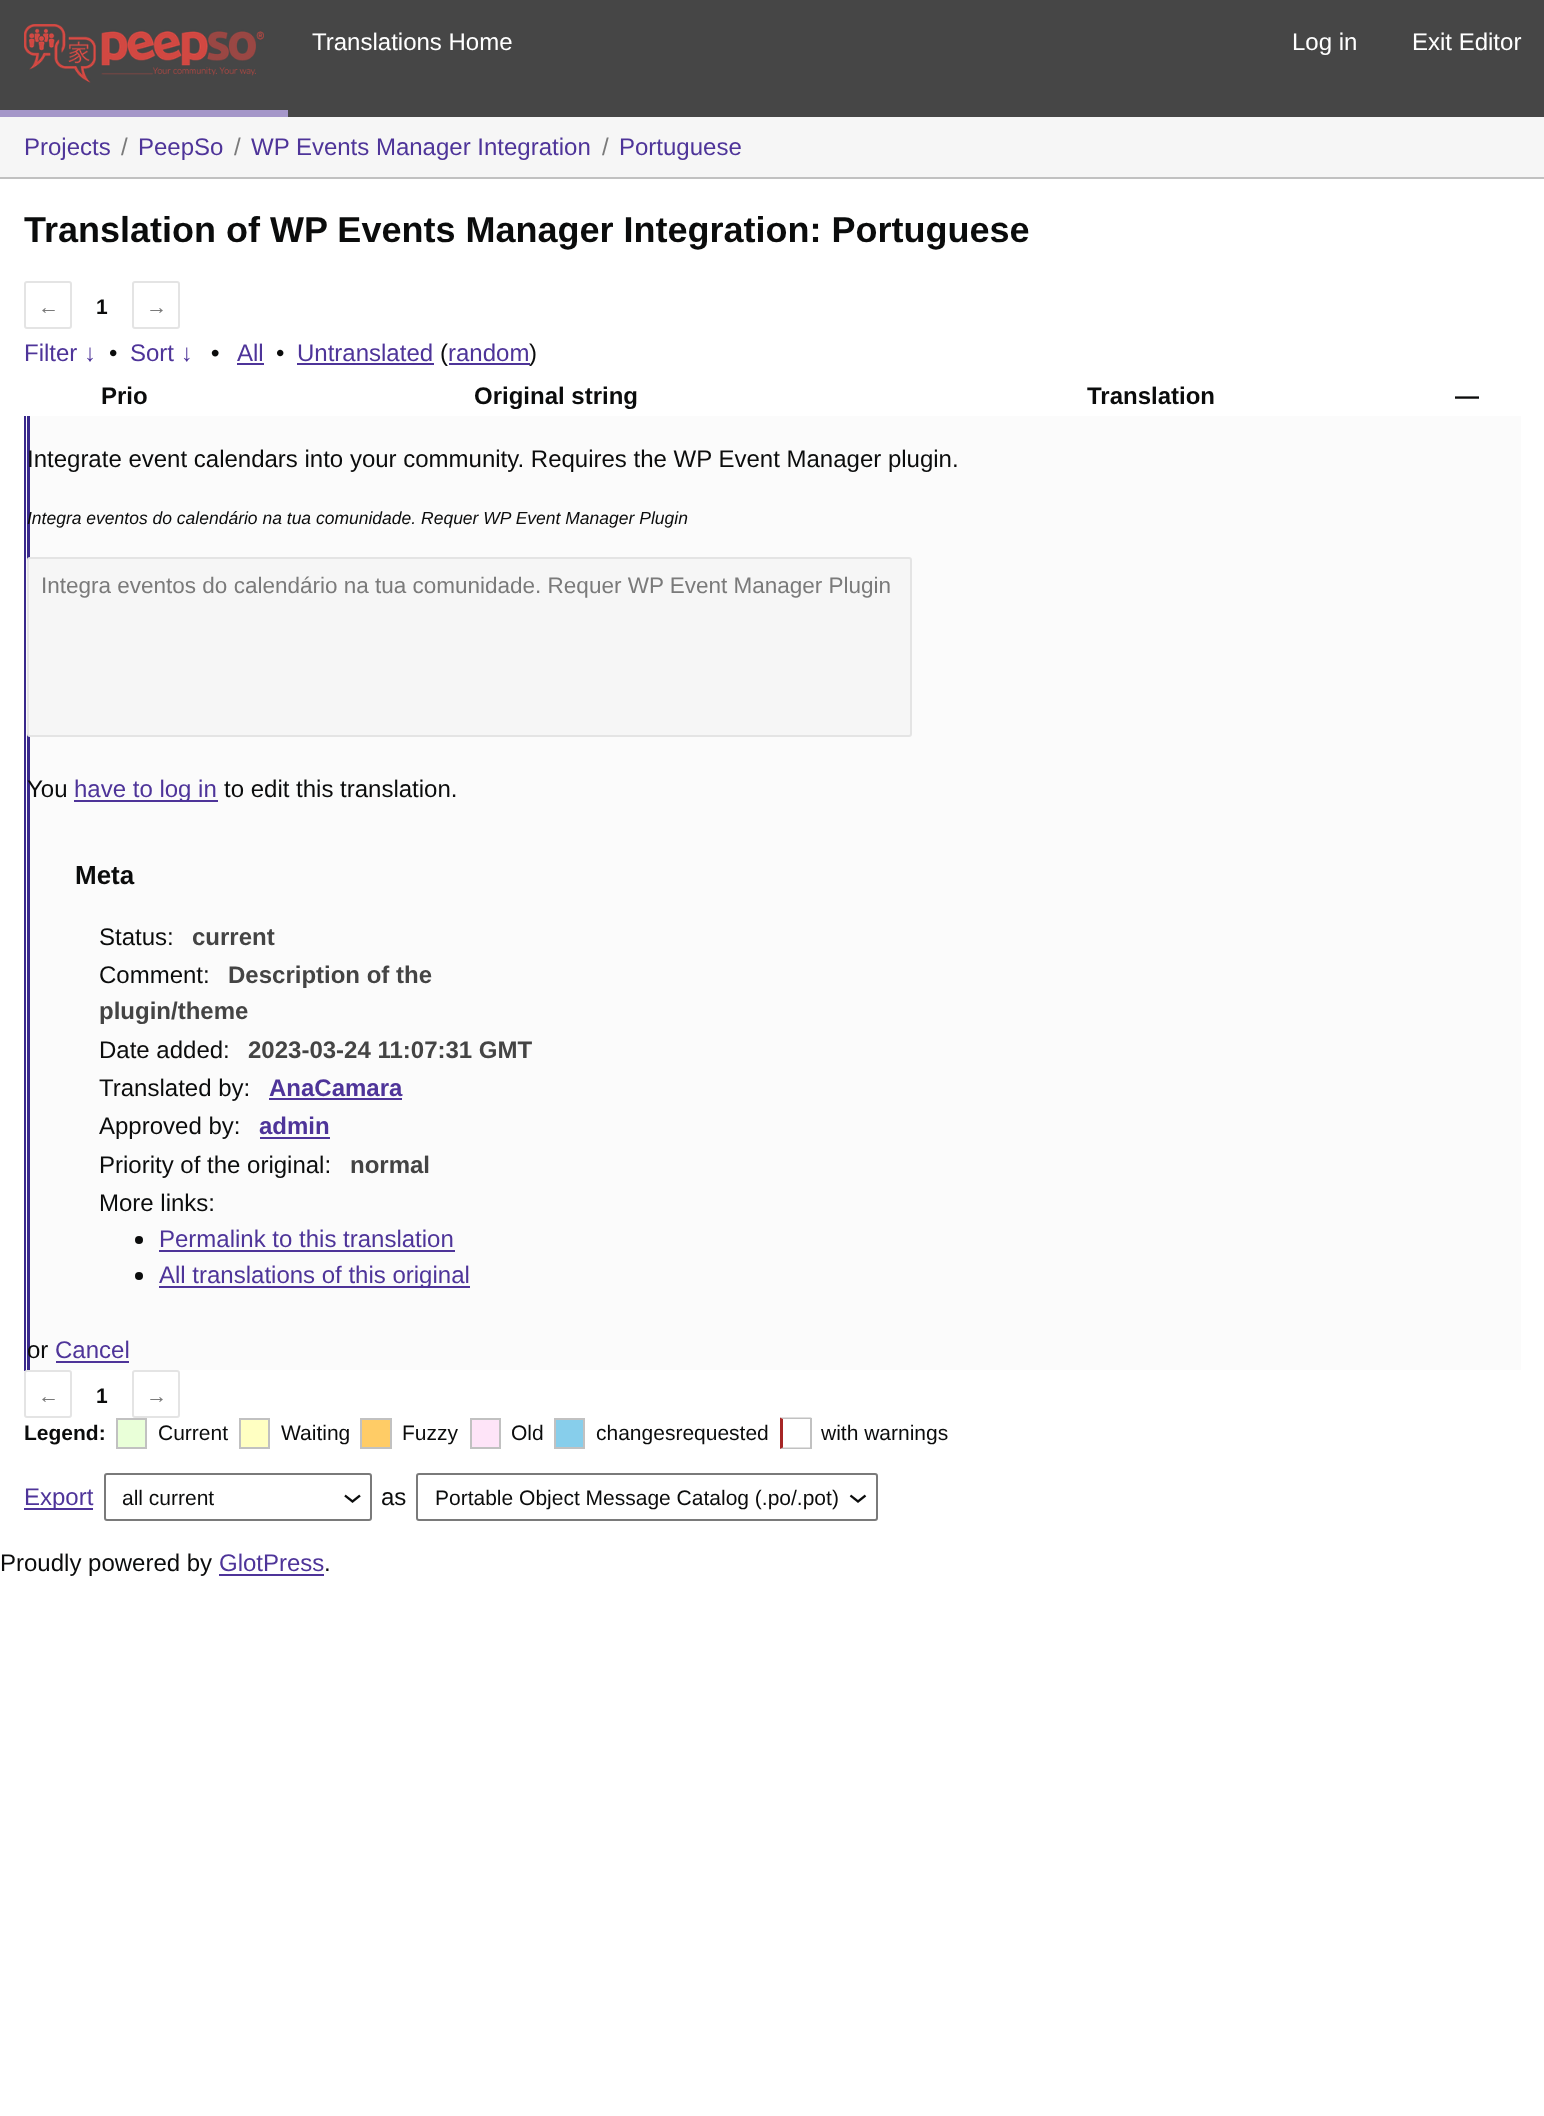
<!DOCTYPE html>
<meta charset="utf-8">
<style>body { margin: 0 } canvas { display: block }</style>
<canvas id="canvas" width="1544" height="2116"></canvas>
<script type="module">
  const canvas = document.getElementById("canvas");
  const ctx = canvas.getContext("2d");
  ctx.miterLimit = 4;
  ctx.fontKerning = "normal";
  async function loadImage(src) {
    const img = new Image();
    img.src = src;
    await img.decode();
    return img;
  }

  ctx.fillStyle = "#ffffff";
  ctx.fillRect(0, 0, 1544, 2116);
  ctx.fillStyle = "#464646";
  ctx.fillRect(0, 0, 1544, 117);
  ctx.fillStyle = "#a597c9";
  ctx.fillRect(0, 110, 288, 7);
  ctx.drawImage(await loadImage("img1.png"), 24, 24, 240, 59);
  ctx.font = "24px Liberation Sans";
  ctx.fillStyle = "#ffffff";
  ctx.fillText("Translations Home", 312, 50);
  ctx.fillText("Log in", 1292, 50);
  ctx.fillText("Exit Editor", 1412, 50);
  ctx.fillStyle = "#f6f6f6";
  ctx.fillRect(0, 117, 1544, 60);
  ctx.fillStyle = "#c1c1c1";
  ctx.fillRect(0, 177, 1544, 2);
  ctx.fillStyle = "#4e3499";
  ctx.fillText("Projects", 24, 155);
  ctx.fillStyle = "#7a7a7a";
  ctx.fillText("/", 121, 155);
  ctx.fillStyle = "#4e3499";
  ctx.fillText("PeepSo", 138, 155);
  ctx.fillStyle = "#7a7a7a";
  ctx.fillText("/", 234, 155);
  ctx.fillStyle = "#4e3499";
  ctx.fillText("WP Events Manager Integration", 251, 155);
  ctx.fillStyle = "#7a7a7a";
  ctx.fillText("/", 602, 155);
  ctx.fillStyle = "#4e3499";
  ctx.fillText("Portuguese", 619, 155);
  ctx.font = "bold 36px Liberation Sans";
  ctx.fillStyle = "#0b0c0c";
  ctx.fillText("Translation of WP Events Manager Integration: Portuguese", 24, 242);
  ctx.beginPath();
  ctx.roundRect(25, 282, 46, 46, 2);
  ctx.strokeStyle = "#e4e4e4";
  ctx.lineWidth = 2;
  ctx.stroke();
  ctx.font = "21px Liberation Sans";
  ctx.fillStyle = "#7a7a7a";
  ctx.fillText("←", 38, 314);
  ctx.font = "bold 21px Liberation Sans";
  ctx.fillStyle = "#0b0c0c";
  ctx.fillText("1", 96, 314);
  ctx.beginPath();
  ctx.roundRect(133, 282, 46, 46, 2);
  ctx.stroke();
  ctx.font = "21px Liberation Sans";
  ctx.fillStyle = "#7a7a7a";
  ctx.fillText("→", 146, 314);
  ctx.font = "24px Liberation Sans";
  ctx.fillStyle = "#4e3499";
  ctx.fillText("Filter ↓", 24, 361);
  ctx.fillStyle = "#0b0c0c";
  ctx.fillText("•", 109, 361);
  ctx.fillStyle = "#4e3499";
  ctx.fillText("Sort ↓", 130, 361);
  ctx.font = "bold 24px Liberation Sans";
  ctx.fillStyle = "#0b0c0c";
  ctx.fillText("•", 211, 361);
  ctx.font = "24px Liberation Sans";
  ctx.fillStyle = "#4e3499";
  ctx.fillText("All", 237, 361);
  ctx.fillRect(237, 363, 27, 2);
  ctx.fillStyle = "#0b0c0c";
  ctx.fillText("•", 276, 361);
  ctx.fillStyle = "#4e3499";
  ctx.fillText("Untranslated", 297, 361);
  ctx.fillRect(297, 363, 137, 2);
  ctx.fillStyle = "#0b0c0c";
  ctx.fillText("(", 440, 361);
  ctx.fillStyle = "#4e3499";
  ctx.fillText("random", 448, 361);
  ctx.fillRect(449, 363, 81, 2);
  ctx.fillStyle = "#0b0c0c";
  ctx.fillText(")", 529, 361);
  ctx.font = "bold 24px Liberation Sans";
  ctx.fillText("Prio", 101, 404);
  ctx.fillText("Original string", 474, 404);
  ctx.fillText("Translation", 1087, 404);
  ctx.fillText("—", 1455, 404);
  ctx.fillStyle = "#fbfbfb";
  ctx.fillRect(26, 416, 1495, 954);
  ctx.fillStyle = "#39298b";
  ctx.fillRect(27, 416, 3, 954);
  ctx.fillRect(24, 416, 2, 955);
  ctx.font = "24px Liberation Sans";
  ctx.fillStyle = "#0b0c0c";
  ctx.fillText("Integrate event calendars into your community. Requires the WP Event Manager plugin.", 27, 467);
  ctx.font = "italic 17.5px Liberation Sans";
  ctx.fillText("Integra eventos do calendário na tua comunidade. Requer WP Event Manager Plugin", 27, 524);
  ctx.fillStyle = "#f6f6f6";
  ctx.beginPath();
  ctx.roundRect(28, 558, 883, 178, 2);
  ctx.fill();
  ctx.stroke();
  ctx.font = "22.5px Liberation Sans";
  ctx.fillStyle = "#7a7a7a";
  ctx.fillText("Integra eventos do calendário na tua comunidade. Requer WP Event Manager Plugin", 41, 593);
  ctx.font = "24px Liberation Sans";
  ctx.fillStyle = "#0b0c0c";
  ctx.fillText("You", 27, 797);
  ctx.fillStyle = "#4e3499";
  ctx.fillRect(74, 800, 144, 2);
  ctx.fillText("have to log in", 74, 797);
  ctx.fillStyle = "#0b0c0c";
  ctx.fillText("to edit this translation.", 224, 797);
  ctx.font = "bold 26px Liberation Sans";
  ctx.fillText("Meta", 75, 884);
  ctx.font = "24px Liberation Sans";
  ctx.fillText("Status:", 99, 945);
  ctx.font = "bold 24px Liberation Sans";
  ctx.fillStyle = "#444444";
  ctx.fillText("current", 192, 945);
  ctx.font = "24px Liberation Sans";
  ctx.fillStyle = "#0b0c0c";
  ctx.fillText("Comment:", 99, 983);
  ctx.font = "bold 24px Liberation Sans";
  ctx.fillStyle = "#444444";
  ctx.fillText("Description of the", 228, 983);
  ctx.fillText("plugin/theme", 99, 1019);
  ctx.font = "24px Liberation Sans";
  ctx.fillStyle = "#0b0c0c";
  ctx.fillText("Date added:", 99, 1058);
  ctx.font = "bold 24px Liberation Sans";
  ctx.fillStyle = "#444444";
  ctx.fillText("2023-03-24 11:07:31 GMT", 248, 1058);
  ctx.font = "24px Liberation Sans";
  ctx.fillStyle = "#0b0c0c";
  ctx.fillText("Translated by:", 99, 1096);
  ctx.font = "bold 24px Liberation Sans";
  ctx.fillStyle = "#4e3499";
  ctx.fillText("AnaCamara", 269, 1096);
  ctx.fillRect(269, 1098, 133, 2);
  ctx.font = "24px Liberation Sans";
  ctx.fillStyle = "#0b0c0c";
  ctx.fillText("Approved by:", 99, 1134);
  ctx.font = "bold 24px Liberation Sans";
  ctx.fillStyle = "#4e3499";
  ctx.fillText("admin", 259, 1134);
  ctx.fillRect(260, 1137, 70, 2);
  ctx.font = "24px Liberation Sans";
  ctx.fillStyle = "#0b0c0c";
  ctx.fillText("Priority of the original:", 99, 1173);
  ctx.font = "bold 24px Liberation Sans";
  ctx.fillStyle = "#444444";
  ctx.fillText("normal", 350, 1173);
  ctx.font = "24px Liberation Sans";
  ctx.fillStyle = "#0b0c0c";
  ctx.fillText("More links:", 99, 1211);
  ctx.beginPath();
  ctx.arc(139, 1240, 4, 0, Math.PI * 2);
  ctx.fill();
  ctx.fillStyle = "#4e3499";
  ctx.fillText("Permalink to this translation", 159, 1247);
  ctx.fillRect(159, 1250, 296, 2);
  ctx.fillStyle = "#0b0c0c";
  ctx.beginPath();
  ctx.arc(139, 1276, 4, 0, Math.PI * 2);
  ctx.fill();
  ctx.fillStyle = "#4e3499";
  ctx.fillRect(159, 1286, 311, 2);
  ctx.fillText("All translations of this original", 159, 1283);
  ctx.fillStyle = "#0b0c0c";
  ctx.fillText("or", 27, 1358);
  ctx.fillStyle = "#4e3499";
  ctx.fillText("Cancel", 55, 1358);
  ctx.fillRect(56, 1361, 73, 2);
  ctx.beginPath();
  ctx.roundRect(25, 1371, 46, 46, 2);
  ctx.stroke();
  ctx.font = "21px Liberation Sans";
  ctx.fillStyle = "#7a7a7a";
  ctx.fillText("←", 38, 1403);
  ctx.font = "bold 21px Liberation Sans";
  ctx.fillStyle = "#0b0c0c";
  ctx.fillText("1", 96, 1403);
  ctx.beginPath();
  ctx.roundRect(133, 1371, 46, 46, 2);
  ctx.stroke();
  ctx.font = "21px Liberation Sans";
  ctx.fillStyle = "#7a7a7a";
  ctx.fillText("→", 146, 1403);
  ctx.font = "bold 21px Liberation Sans";
  ctx.fillStyle = "#0b0c0c";
  ctx.fillText("Legend:", 24, 1440);
  ctx.fillStyle = "#e9ffd8";
  ctx.beginPath();
  ctx.rect(117, 1419, 29, 29);
  ctx.fill();
  ctx.strokeStyle = "#c1c1c1";
  ctx.stroke();
  ctx.font = "21px Liberation Sans";
  ctx.fillStyle = "#0b0c0c";
  ctx.fillText("Current", 158, 1440);
  ctx.fillStyle = "#ffffc2";
  ctx.beginPath();
  ctx.rect(240, 1419, 29, 29);
  ctx.fill();
  ctx.stroke();
  ctx.fillStyle = "#0b0c0c";
  ctx.fillText("Waiting", 281, 1440);
  ctx.fillStyle = "#ffcc66";
  ctx.beginPath();
  ctx.rect(361, 1419, 30, 29);
  ctx.fill();
  ctx.stroke();
  ctx.fillStyle = "#0b0c0c";
  ctx.fillText("Fuzzy", 402, 1440);
  ctx.fillStyle = "#fee4f8";
  ctx.beginPath();
  ctx.rect(471, 1419, 29, 29);
  ctx.fill();
  ctx.stroke();
  ctx.fillStyle = "#0b0c0c";
  ctx.fillText("Old", 511, 1440);
  ctx.fillStyle = "#87ceeb";
  ctx.beginPath();
  ctx.rect(555, 1419, 29, 29);
  ctx.fill();
  ctx.stroke();
  ctx.fillStyle = "#0b0c0c";
  ctx.fillText("changesrequested", 596, 1440);
  ctx.fillStyle = "#c1c1c1";
  ctx.beginPath();
  ctx.moveTo(780, 1417.5);
  ctx.lineTo(811.5, 1417.5);
  ctx.lineTo(810, 1419);
  ctx.lineTo(783, 1419);
  ctx.closePath();
  ctx.fill();
  ctx.fillRect(810, 1418, 2, 31);
  ctx.beginPath();
  ctx.moveTo(811.5, 1449);
  ctx.lineTo(780, 1449);
  ctx.lineTo(783, 1447.5);
  ctx.lineTo(810, 1447.5);
  ctx.closePath();
  ctx.fill();
  ctx.fillStyle = "#a62626";
  ctx.beginPath();
  ctx.moveTo(780, 1449);
  ctx.lineTo(780, 1417.5);
  ctx.lineTo(783, 1419);
  ctx.lineTo(783, 1447.5);
  ctx.closePath();
  ctx.fill();
  ctx.fillStyle = "#0b0c0c";
  ctx.fillText("with warnings", 821, 1440);
  ctx.fillStyle = "#4e3499";
  ctx.fillRect(24, 1508, 69, 2);
  ctx.font = "24px Liberation Sans";
  ctx.fillText("Export", 24, 1505);
  ctx.drawImage(await loadImage("img2.png"), 344, 1494, 17, 9);
  ctx.beginPath();
  ctx.roundRect(105, 1474, 266, 46, 2);
  ctx.strokeStyle = "#7a7a7a";
  ctx.stroke();
  ctx.font = "21px Liberation Sans";
  ctx.fillStyle = "#0b0c0c";
  ctx.fillText("all current", 122, 1505);
  ctx.font = "24px Liberation Sans";
  ctx.fillText("as", 381, 1505);
  ctx.drawImage(await loadImage("img3.png"), 849, 1494, 18, 9);
  ctx.beginPath();
  ctx.roundRect(417, 1474, 460, 46, 2);
  ctx.stroke();
  ctx.font = "21px Liberation Sans";
  ctx.fillText("Portable Object Message Catalog (.po/.pot)", 435, 1505);
  ctx.font = "24px Liberation Sans";
  ctx.fillText("Proudly powered by", 0, 1571);
  ctx.fillStyle = "#4e3499";
  ctx.fillText("GlotPress", 219, 1571);
  ctx.fillRect(219, 1574, 105, 2);
  ctx.fillStyle = "#0b0c0c";
  ctx.fillText(".", 324, 1571);
</script>
